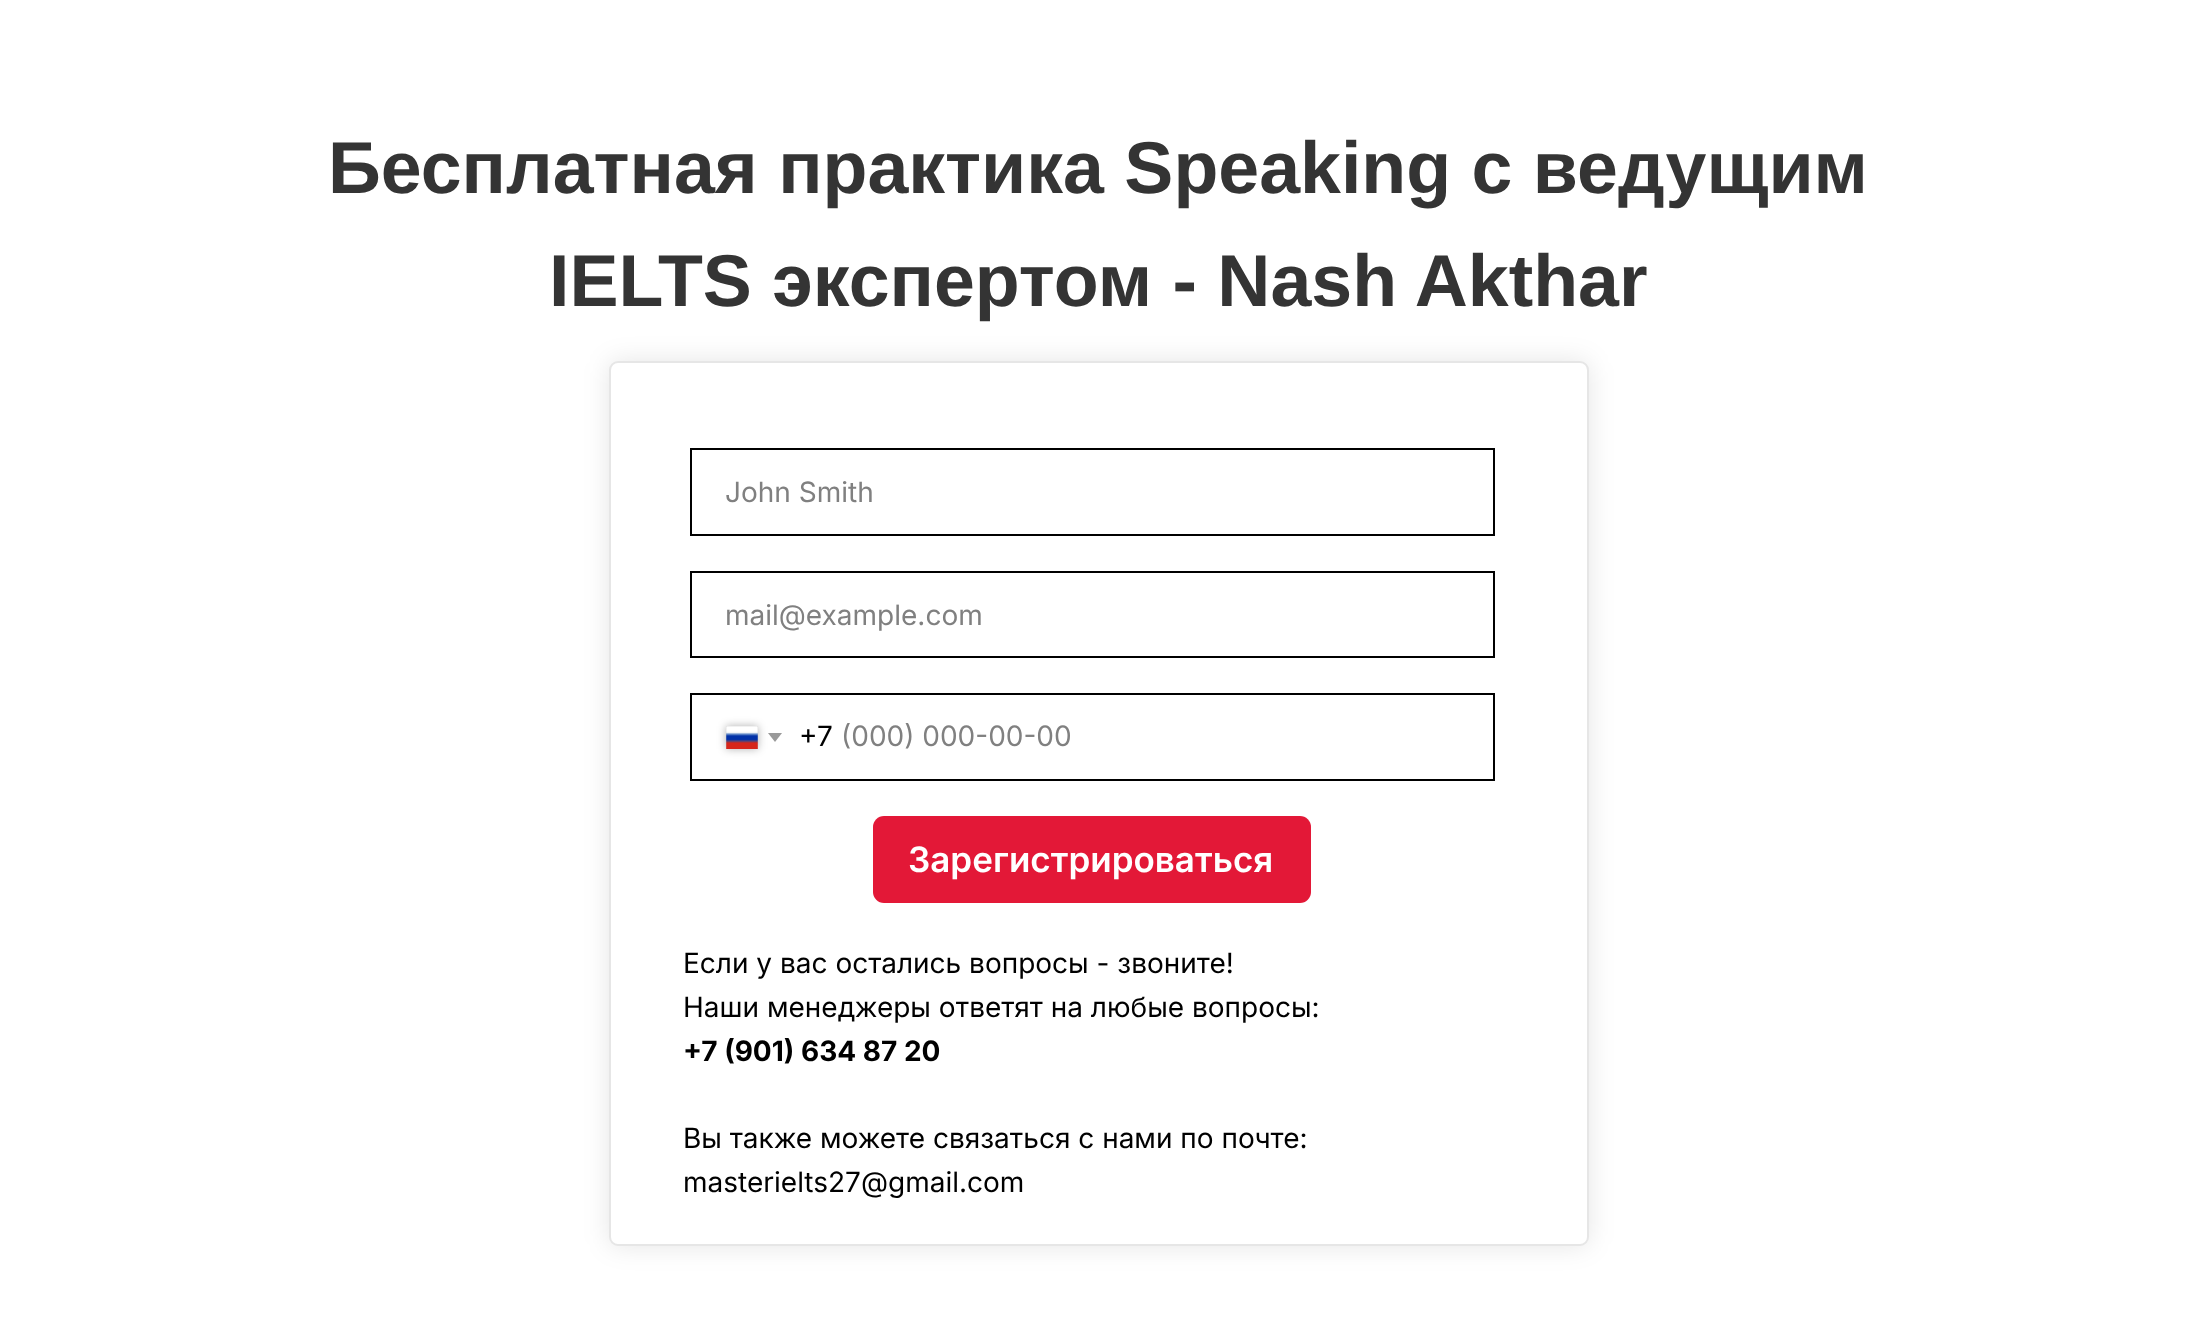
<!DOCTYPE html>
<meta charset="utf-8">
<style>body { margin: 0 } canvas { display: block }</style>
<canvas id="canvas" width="2195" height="1332"></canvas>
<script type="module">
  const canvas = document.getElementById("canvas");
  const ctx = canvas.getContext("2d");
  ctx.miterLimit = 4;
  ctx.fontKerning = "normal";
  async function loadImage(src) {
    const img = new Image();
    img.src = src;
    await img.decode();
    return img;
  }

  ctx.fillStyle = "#ffffff";
  ctx.fillRect(0, 0, 2195, 1332);
  ctx.font = "bold 73.5px Liberation Sans";
  ctx.fillStyle = "#343434";
  ctx.fillText("Бесплатная практика Speaking с ведущим", 328, 193);
  ctx.fillText("IELTS экспертом - Nash Akthar", 549, 306);
  ctx.fillStyle = "rgba(0, 0, 0, 0.1)";
  ctx.filter = "blur(13px)";
  ctx.beginPath();
  ctx.roundRect(609, 361, 980, 885, 9);
  ctx.fill();
  ctx.filter = "none";
  ctx.fillStyle = "#ffffff";
  ctx.beginPath();
  ctx.roundRect(610, 362, 978, 883, 8);
  ctx.fill();
  ctx.strokeStyle = "#e6e6e6";
  ctx.lineWidth = 2;
  ctx.stroke();
  ctx.strokeStyle = "#000000";
  ctx.strokeRect(691, 449, 803, 86);
  ctx.font = "28px Inter";
  ctx.fillStyle = "#808080";
  ctx.fillText("John Smith", 725, 502);
  ctx.strokeRect(691, 572, 803, 85);
  ctx.fillText("mail@example.com", 725, 625);
  ctx.strokeRect(691, 694, 803, 86);
  ctx.fillStyle = "rgba(0, 0, 0, 0.3)";
  ctx.filter = "blur(4.5px)";
  ctx.beginPath();
  ctx.rect(726, 726, 32, 23);
  ctx.fill();
  ctx.filter = "none";
  ctx.fillStyle = "#c5c5c5";
  ctx.fillRect(726, 726, 32, 23);
  ctx.drawImage(await loadImage("img1.png"), 726, 726, 32, 23);
  ctx.fillStyle = "#9a9a9a";
  ctx.beginPath();
  ctx.moveTo(768, 733);
  ctx.lineTo(782, 733);
  ctx.lineTo(775, 742);
  ctx.closePath();
  ctx.fill();
  ctx.fillStyle = "#000000";
  ctx.fillText("+7", 799, 746);
  ctx.fillStyle = "#808080";
  ctx.fillText("(000) 000-00-00", 841, 746);
  ctx.fillStyle = "#e31837";
  ctx.beginPath();
  ctx.roundRect(873, 816, 438, 87, 11);
  ctx.fill();
  ctx.font = "600 35px Inter";
  ctx.fillStyle = "#ffffff";
  ctx.fillText("Зарегистрироваться", 908, 872);
  ctx.font = "28px Inter";
  ctx.fillStyle = "#000000";
  ctx.fillText("Если у вас остались вопросы - звоните!", 683, 973);
  ctx.fillText("Наши менеджеры ответят на любые вопросы:", 683, 1017);
  ctx.font = "bold 28px Inter";
  ctx.fillText("+7 (901) 634 87 20", 683, 1061);
  ctx.font = "28px Inter";
  ctx.fillText("Вы также можете связаться с нами по почте:", 683, 1148);
  ctx.fillText("masterielts27@gmail.com", 683, 1192);
</script>
